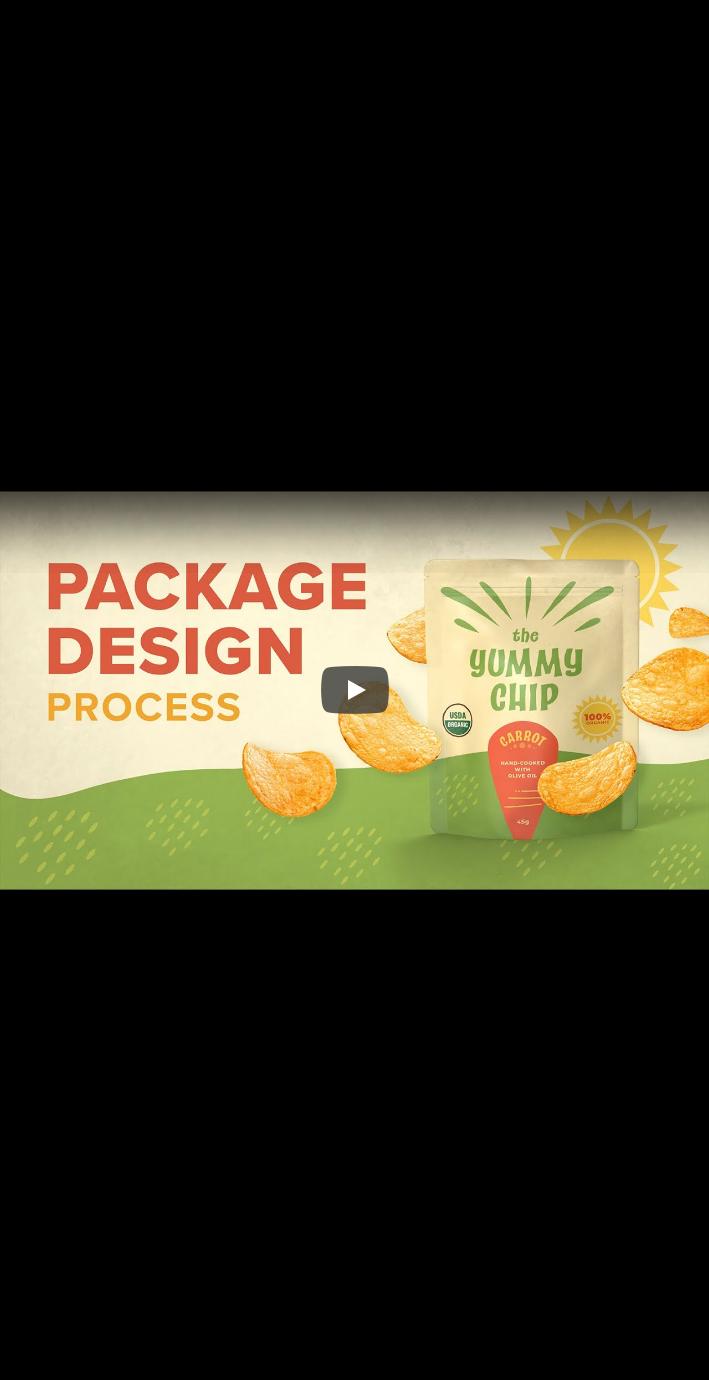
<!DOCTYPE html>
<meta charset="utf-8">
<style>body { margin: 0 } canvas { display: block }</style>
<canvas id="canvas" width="709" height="1380"></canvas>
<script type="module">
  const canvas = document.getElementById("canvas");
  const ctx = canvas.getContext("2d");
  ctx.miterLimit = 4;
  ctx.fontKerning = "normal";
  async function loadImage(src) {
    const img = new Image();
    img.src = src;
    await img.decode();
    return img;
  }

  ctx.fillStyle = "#000000";
  ctx.fillRect(0, 0, 709, 1380);
  ctx.drawImage(await loadImage("img1.png"), 0, 491, 709, 399);
  ctx.drawImage(await loadImage("img2.png"), 0, 491, 709, 82);
  ctx.drawImage(await loadImage("img3.png"), 321, 666, 68, 48);
</script>
